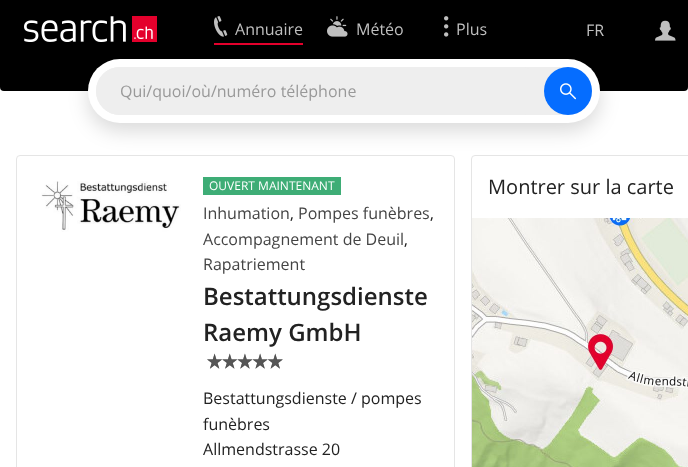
<!DOCTYPE html>
<meta charset="utf-8">
<style>body { margin: 0 } canvas { display: block }</style>
<canvas id="canvas" width="688" height="467"></canvas>
<script type="module">
  const canvas = document.getElementById("canvas");
  const ctx = canvas.getContext("2d");
  ctx.miterLimit = 4;
  ctx.fontKerning = "normal";
  async function loadImage(src) {
    const img = new Image();
    img.src = src;
    await img.decode();
    return img;
  }

  ctx.fillStyle = "#ffffff";
  ctx.fillRect(0, 0, 688, 467);
  ctx.fillStyle = "#000000";
  ctx.fillRect(0, 0, 688, 59);
  ctx.drawImage(await loadImage("img1.png"), 24, 16, 133, 26);
  ctx.fillStyle = "#e4002c";
  ctx.fillRect(214, 43, 89, 2);
  ctx.drawImage(await loadImage("img2.png"), 214, 16, 14, 21);
  ctx.font = "16px Open Sans";
  ctx.fillStyle = "#bfbfbf";
  ctx.fillText("Annuaire", 235, 35);
  ctx.drawImage(await loadImage("img3.png"), 327, 16, 21, 21);
  ctx.fillText("Météo", 356, 35);
  ctx.drawImage(await loadImage("img4.png"), 444, 16, 5, 21);
  ctx.fillText("Plus", 456, 35);
  ctx.fillText("FR", 586, 36);
  ctx.drawImage(await loadImage("img5.png"), 655, 20, 21, 21);
  ctx.fillStyle = "#000000";
  ctx.beginPath();
  ctx.roundRect(0, 59, 688, 32, [0, 0, 4, 4]);
  ctx.fill();
  ctx.beginPath();
  ctx.roundRect(16.5, 155.5, 438, 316, 3.5);
  ctx.strokeStyle = "#e5e5e5";
  ctx.stroke();
  ctx.beginPath();
  ctx.roundRect(471.5, 155.5, 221, 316, 3.5);
  ctx.stroke();
  ctx.fillStyle = "rgba(0, 0, 0, 0.15)";
  ctx.filter = "blur(10px)";
  ctx.beginPath();
  ctx.roundRect(88, 67, 512, 64, 32);
  ctx.fill();
  ctx.filter = "none";
  ctx.fillStyle = "#ffffff";
  ctx.beginPath();
  ctx.roundRect(88, 59, 512, 64, 32);
  ctx.fill();
  ctx.fillStyle = "#eeeeee";
  ctx.beginPath();
  ctx.roundRect(96, 67, 496, 48, 24);
  ctx.fill();
  ctx.beginPath();
  ctx.roundRect(96, 67, 448, 48, 24);
  ctx.fill();
  ctx.fillStyle = "#999999";
  ctx.fillText("Qui/quoi/où/numéro téléphone", 120, 97);
  ctx.fillStyle = "#056dff";
  ctx.beginPath();
  ctx.arc(568, 91, 24, 0, Math.PI * 2);
  ctx.fill();
  ctx.drawImage(await loadImage("img6.png"), 560, 83, 16, 17);
  ctx.drawImage(await loadImage("img7.png"), 41, 181, 140, 51);
  ctx.fillStyle = "#3ead76";
  ctx.fillRect(203, 177, 138, 18);
  ctx.font = "12px Open Sans";
  ctx.fillStyle = "#ffffff";
  ctx.fillText("OUVERT MAINTENANT", 209, 190);
  ctx.font = "16px Open Sans";
  ctx.fillStyle = "#444444";
  ctx.fillText("Inhumation", 203, 219);
  ctx.fillStyle = "#222222";
  ctx.fillText(",", 290, 219);
  ctx.fillStyle = "#444444";
  ctx.fillText("Pompes funèbres", 298, 219);
  ctx.fillStyle = "#222222";
  ctx.fillText(",", 430, 219);
  ctx.fillStyle = "#444444";
  ctx.fillText("Accompagnement de Deuil", 203, 245);
  ctx.fillStyle = "#222222";
  ctx.fillText(",", 404, 245);
  ctx.fillStyle = "#444444";
  ctx.fillText("Rapatriement", 203, 270);
  ctx.font = "600 24px Open Sans";
  ctx.fillStyle = "#222222";
  ctx.fillText("Bestattungsdienste", 203, 305);
  ctx.fillText("Raemy GmbH", 203, 341);
  ctx.drawImage(await loadImage("img8.png"), 207, 353, 76, 16);
  ctx.drawImage(await loadImage("img9.png"), 207, 353, 76, 16);
  ctx.font = "16px Open Sans";
  ctx.fillText("Bestattungsdienste / pompes", 203, 404);
  ctx.fillText("funèbres", 203, 430);
  ctx.fillText("Allmendstrasse 20", 203, 455);
  ctx.font = "20px Open Sans";
  ctx.fillText("Montrer sur la carte", 488, 194);
  ctx.drawImage(await loadImage("img10.png"), 472, 218, 216, 249);
</script>
